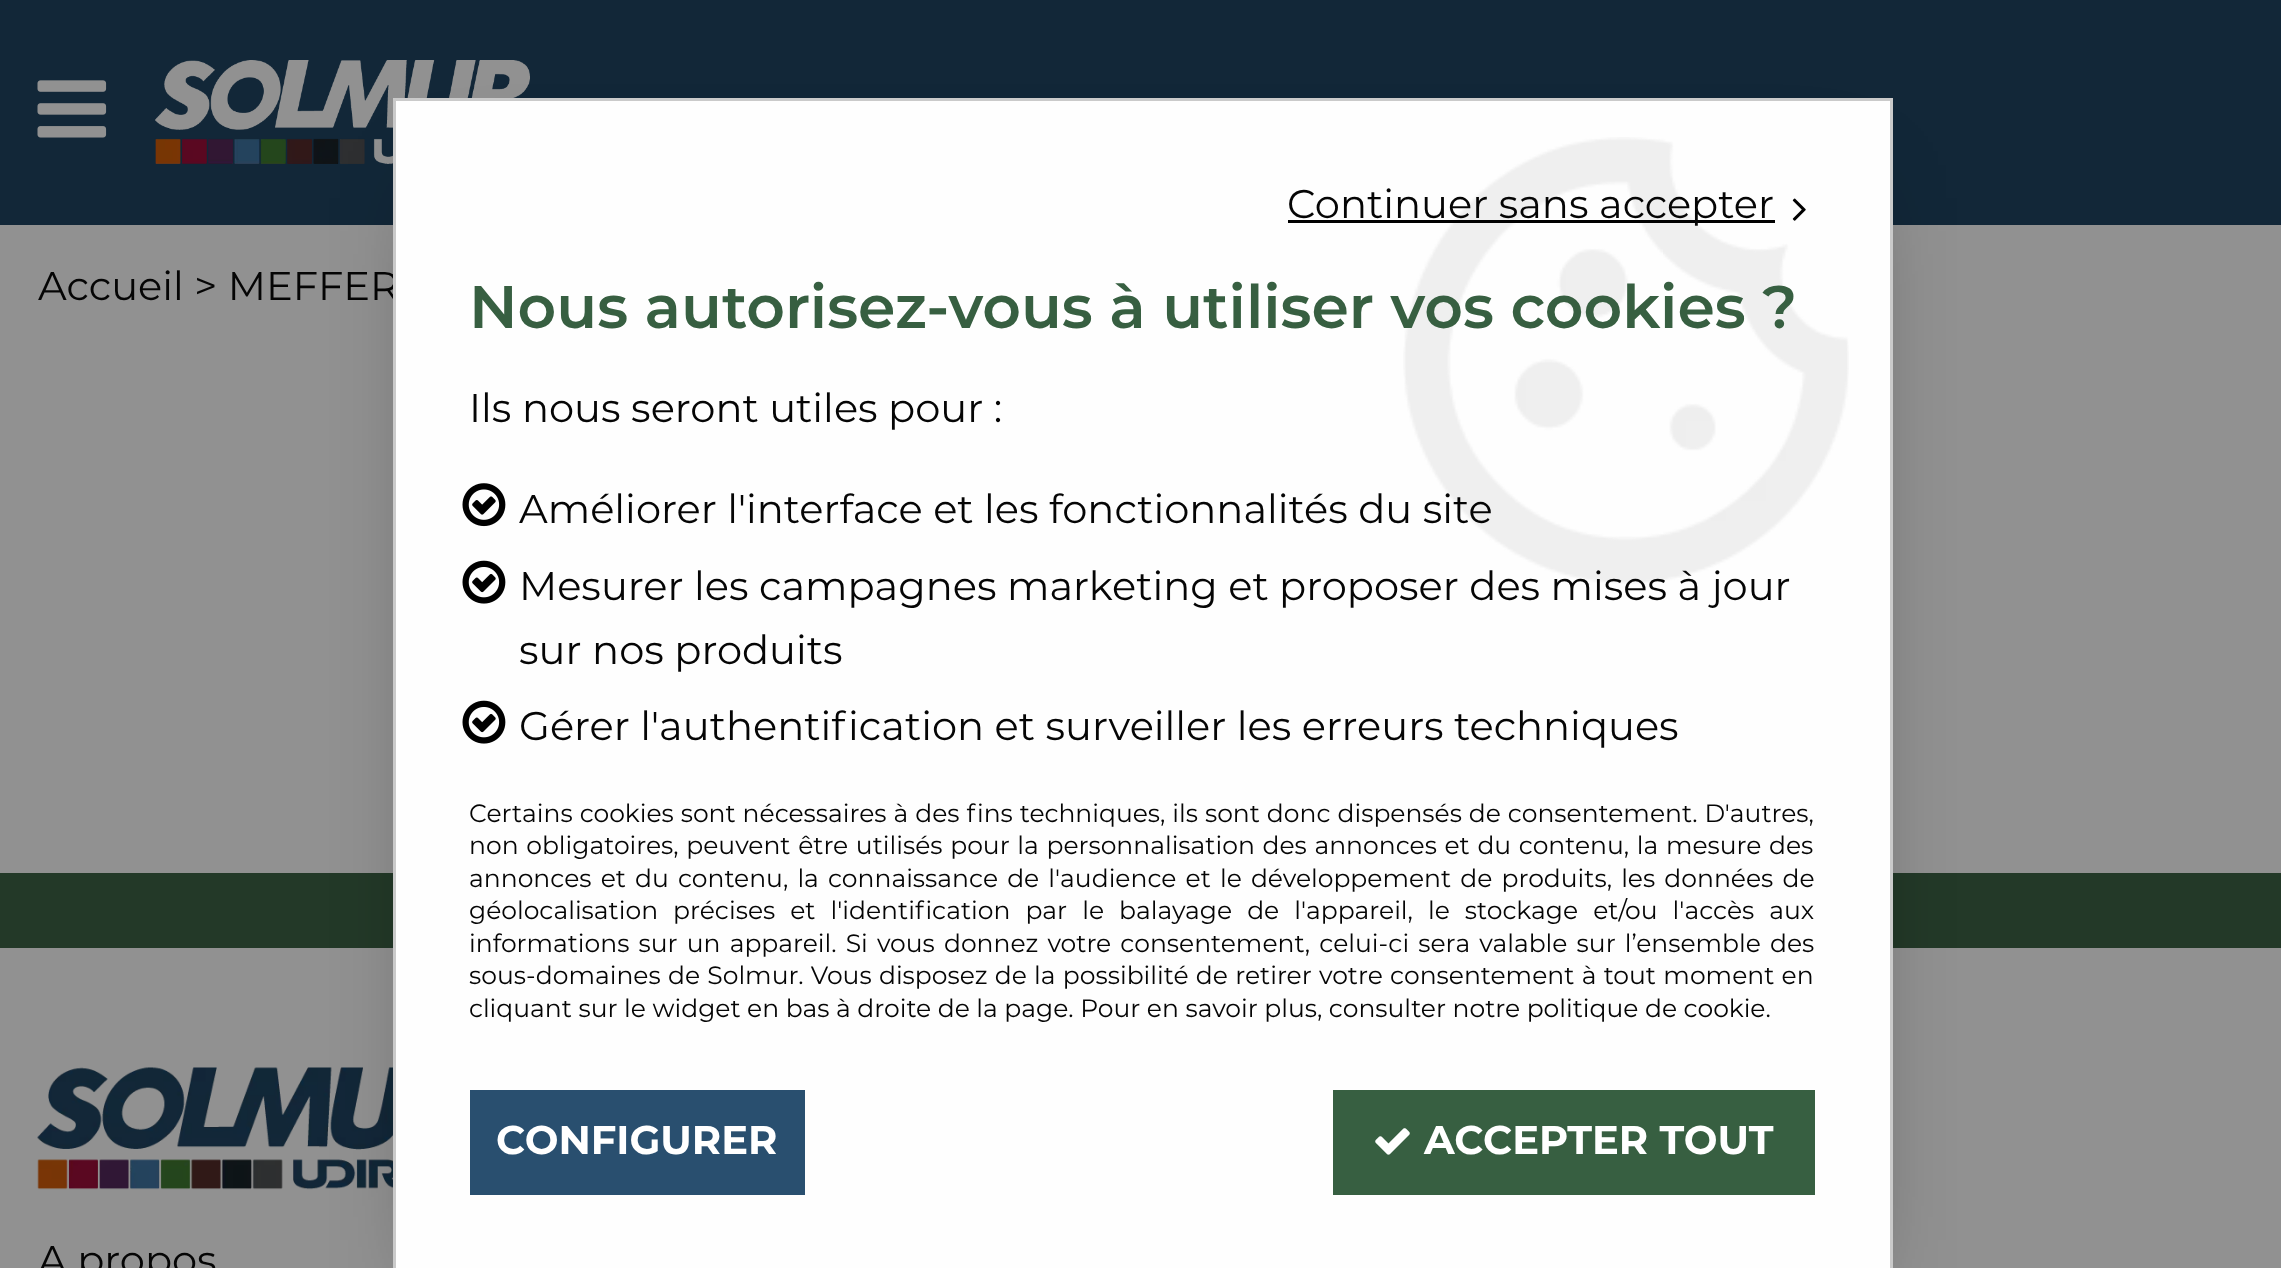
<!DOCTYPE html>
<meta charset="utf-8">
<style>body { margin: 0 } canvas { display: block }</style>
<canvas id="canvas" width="2281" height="1268"></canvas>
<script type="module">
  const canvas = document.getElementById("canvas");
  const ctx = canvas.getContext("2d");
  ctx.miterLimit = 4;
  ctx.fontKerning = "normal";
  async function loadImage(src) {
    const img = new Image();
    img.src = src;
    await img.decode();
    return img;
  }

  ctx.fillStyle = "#919191";
  ctx.fillRect(0, 0, 2281, 1268);
  ctx.fillStyle = "#122738";
  ctx.fillRect(0, 0, 2281, 225);
  ctx.drawImage(await loadImage("img1.png"), 37, 80, 70, 58);
  ctx.drawImage(await loadImage("img2.png"), 155, 60, 375, 104);
  ctx.font = "40px Montserrat";
  ctx.fillStyle = "#050505";
  ctx.fillText("Accueil > MEFFER", 38, 300);
  ctx.fillStyle = "#233928";
  ctx.fillRect(0, 873, 2281, 75);
  ctx.drawImage(await loadImage("img3.png"), 37, 1067, 356, 123);
  ctx.fillStyle = "#050505";
  ctx.fillText("A propos", 38, 1274);
  ctx.fillStyle = "rgba(0, 0, 0, 0.5)";
  ctx.filter = "blur(50px)";
  ctx.beginPath();
  ctx.rect(443, 198, 1400, 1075);
  ctx.fill();
  ctx.filter = "none";
  ctx.fillStyle = "#fefefe";
  ctx.fillRect(396, 101, 1494, 1167);
  ctx.drawImage(await loadImage("img4.png"), 1403, 137, 446, 447);
  ctx.strokeStyle = "#cacaca";
  ctx.lineWidth = 3;
  ctx.strokeRect(394.5, 99.5, 1497, 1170);
  ctx.fillStyle = "#000000";
  ctx.fillRect(1288, 220, 487, 3);
  ctx.fillStyle = "#050505";
  ctx.fillText("Continuer sans accepter", 1287, 218);
  ctx.drawImage(await loadImage("img5.png"), 1792, 198, 14, 23);
  ctx.font = "600 60px Montserrat";
  ctx.fillStyle = "#375f41";
  ctx.fillText("Nous autorisez-vous à utiliser vos cookies ?", 469, 328);
  ctx.font = "40px Montserrat";
  ctx.fillStyle = "#050505";
  ctx.fillText("Ils nous seront utiles pour :", 469, 422);
  ctx.drawImage(await loadImage("img6.png"), 462, 483, 44, 44);
  ctx.fillText("Améliorer l'interface et les fonctionnalités du site", 519, 523);
  ctx.drawImage(await loadImage("img7.png"), 462, 560, 44, 44);
  ctx.fillText("Mesurer les campagnes marketing et proposer des mises à jour", 519, 600);
  ctx.fillText("sur nos produits", 519, 664);
  ctx.drawImage(await loadImage("img7.png"), 462, 700, 44, 44);
  ctx.fillText("Gérer l'authentification et surveiller les erreurs techniques", 519, 740);
  ctx.wordSpacing = "0.4px";
  ctx.font = "25px Montserrat";
  ctx.fillText("Certains cookies sont nécessaires à des fins techniques, ils sont donc dispensés de consentement. D'autres,", 469, 822);
  ctx.wordSpacing = "1.1px";
  ctx.fillText("non obligatoires, peuvent être utilisés pour la personnalisation des annonces et du contenu, la mesure des", 469, 854);
  ctx.wordSpacing = "2.6px";
  ctx.fillText("annonces et du contenu, la connaissance de l'audience et le développement de produits, les données de", 469, 887);
  ctx.wordSpacing = "8.5px";
  ctx.fillText("géolocalisation précises et l'identification par le balayage de l'appareil, le stockage et/ou l'accès aux", 469, 919);
  ctx.wordSpacing = "2.6px";
  ctx.fillText("informations sur un appareil. Si vous donnez votre consentement, celui-ci sera valable sur l’ensemble des", 469, 952);
  ctx.wordSpacing = "0.75px";
  ctx.fillText("sous-domaines de Solmur. Vous disposez de la possibilité de retirer votre consentement à tout moment en", 469, 984);
  ctx.wordSpacing = "0px";
  ctx.fillText("cliquant sur le widget en bas à droite de la page. Pour en savoir plus, consulter notre politique de cookie.", 469, 1017);
  ctx.fillStyle = "#294f6f";
  ctx.fillRect(470, 1090, 335, 105);
  ctx.font = "bold 40px Montserrat";
  ctx.fillStyle = "#ffffff";
  ctx.fillText("CONFIGURER", 496, 1154);
  ctx.fillStyle = "#375f41";
  ctx.fillRect(1333, 1090, 482, 105);
  ctx.drawImage(await loadImage("img8.png"), 1375, 1128, 35, 27);
  ctx.fillStyle = "#ffffff";
  ctx.fillText("ACCEPTER TOUT", 1424, 1154);
</script>
